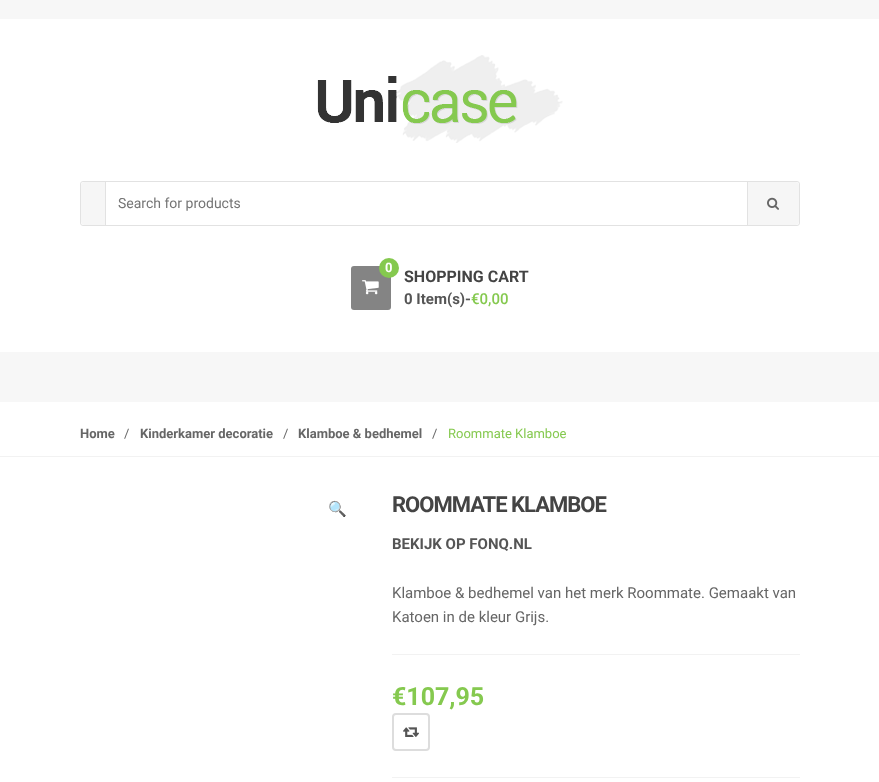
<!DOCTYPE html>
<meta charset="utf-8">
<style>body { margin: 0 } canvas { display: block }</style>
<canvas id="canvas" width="879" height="782"></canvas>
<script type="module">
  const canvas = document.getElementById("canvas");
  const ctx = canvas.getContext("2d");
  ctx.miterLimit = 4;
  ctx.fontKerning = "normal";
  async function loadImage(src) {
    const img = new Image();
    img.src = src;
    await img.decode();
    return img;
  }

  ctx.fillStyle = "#ffffff";
  ctx.fillRect(0, 0, 879, 782);
  ctx.fillStyle = "#f7f7f7";
  ctx.fillRect(0, 0, 879, 19);
  ctx.drawImage(await loadImage("img1.png"), 317, 55, 246, 88);
  ctx.beginPath();
  ctx.roundRect(80.5, 181.5, 719, 44, 2.5);
  ctx.strokeStyle = "#e2e2e2";
  ctx.stroke();
  ctx.fillStyle = "#f6f6f6";
  ctx.beginPath();
  ctx.roundRect(81, 182, 25, 43, [4, 0, 0, 4]);
  ctx.fill();
  ctx.fillStyle = "#e2e2e2";
  ctx.fillRect(105, 182, 1, 43);
  ctx.fillRect(747, 182, 1, 43);
  ctx.font = "14px Roboto";
  ctx.fillStyle = "#757575";
  ctx.fillText("Search for products", 118, 208);
  ctx.fillStyle = "#f6f6f6";
  ctx.beginPath();
  ctx.roundRect(748, 182, 51, 43, [0, 4, 4, 0]);
  ctx.fill();
  ctx.drawImage(await loadImage("img2.png"), 767, 197, 12, 13);
  ctx.fillStyle = "#848484";
  ctx.beginPath();
  ctx.roundRect(351, 266, 40, 44, 3);
  ctx.fill();
  ctx.fillStyle = "#85c94f";
  ctx.beginPath();
  ctx.arc(389, 268, 10, 0, Math.PI * 2);
  ctx.fill();
  ctx.font = "bold 13px Roboto";
  ctx.fillStyle = "#ffffff";
  ctx.fillText("0", 385, 272);
  ctx.drawImage(await loadImage("img3.png"), 362, 280, 17, 15);
  ctx.font = "bold 16px Roboto";
  ctx.fillStyle = "#444444";
  ctx.fillText("SHOPPING CART", 404, 282);
  ctx.font = "bold 15px Roboto";
  ctx.fillStyle = "#555555";
  ctx.fillText("0 Item(s)-", 404, 304);
  ctx.font = "500 15px Roboto";
  ctx.fillStyle = "#85c94f";
  ctx.fillText("€0,00", 471, 304);
  ctx.fillStyle = "#f7f7f7";
  ctx.fillRect(0, 352, 879, 50);
  ctx.fillStyle = "#f2f2f2";
  ctx.fillRect(0, 456, 879, 1);
  ctx.font = "bold 13px Roboto";
  ctx.fillStyle = "#666666";
  ctx.fillText("Home", 80, 438);
  ctx.font = "13px Roboto";
  ctx.fillText("/", 124, 438);
  ctx.font = "bold 13px Roboto";
  ctx.fillText("Kinderkamer decoratie", 140, 438);
  ctx.font = "13px Roboto";
  ctx.fillText("/", 283, 438);
  ctx.font = "bold 13px Roboto";
  ctx.fillText("Klamboe & bedhemel", 298, 438);
  ctx.font = "13px Roboto";
  ctx.fillText("/", 432, 438);
  ctx.fillStyle = "#85c94f";
  ctx.fillText("Roommate Klamboe", 448, 438);
  ctx.font = "bold 15px Noto Color Emoji";
  ctx.fillStyle = "#555555";
  ctx.fillText("🔍", 328, 514);
  ctx.letterSpacing = "-1px";
  ctx.font = "bold 22px Roboto";
  ctx.fillStyle = "#444444";
  ctx.fillText("ROOMMATE KLAMBOE", 392, 512);
  ctx.letterSpacing = "0px";
  ctx.font = "bold 15px Roboto";
  ctx.fillStyle = "#555555";
  ctx.fillText("BEKIJK OP FONQ.NL", 392, 549);
  ctx.font = "15px Roboto";
  ctx.fillStyle = "#666666";
  ctx.fillText("Klamboe & bedhemel van het merk Roommate. Gemaakt van", 392, 598);
  ctx.fillText("Katoen in de kleur Grijs.", 392, 622);
  ctx.fillStyle = "#f2f2f2";
  ctx.fillRect(392, 654, 408, 1);
  ctx.fillRect(392, 777, 408, 1);
  ctx.font = "bold 25px Roboto";
  ctx.fillStyle = "#85c94f";
  ctx.fillText("€107,95", 392, 705);
  ctx.beginPath();
  ctx.roundRect(393, 714, 36, 36, 3);
  ctx.strokeStyle = "#dddddd";
  ctx.lineWidth = 2;
  ctx.stroke();
  ctx.drawImage(await loadImage("img4.png"), 403, 727, 16, 10);
</script>
